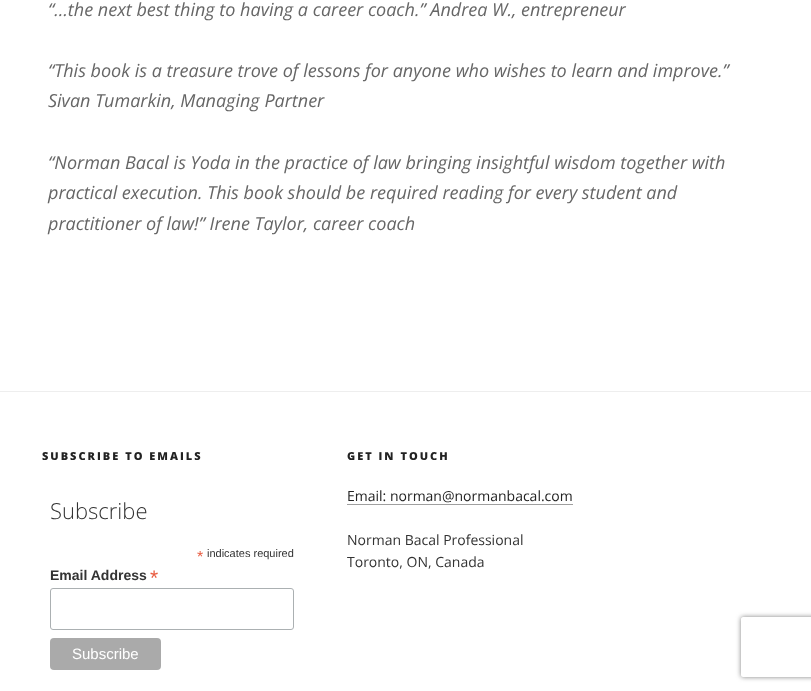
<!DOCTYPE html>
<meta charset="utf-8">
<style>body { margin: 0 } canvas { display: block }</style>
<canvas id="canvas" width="811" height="691"></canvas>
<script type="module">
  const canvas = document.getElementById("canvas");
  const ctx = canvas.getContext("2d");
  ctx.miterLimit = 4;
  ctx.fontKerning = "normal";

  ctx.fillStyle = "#ffffff";
  ctx.fillRect(0, 0, 811, 691);
  ctx.font = "italic 18px Open Sans";
  ctx.fillStyle = "#666666";
  ctx.fillText("“…the next best thing to having a career coach.” Andrea W., entrepreneur", 48, 16);
  ctx.fillText("“This book is a treasure trove of lessons for anyone who wishes to learn and improve.”", 48, 77);
  ctx.fillText("Sivan Tumarkin, Managing Partner", 48, 107);
  ctx.fillText("“Norman Bacal is Yoda in the practice of law bringing insightful wisdom together with", 48, 169);
  ctx.fillText("practical execution. This book should be required reading for every student and", 48, 199);
  ctx.fillText("practitioner of law!” Irene Taylor, career coach", 48, 230);
  ctx.fillStyle = "#eeeeee";
  ctx.fillRect(0, 391, 811, 1);
  ctx.letterSpacing = "2px";
  ctx.font = "800 11px Open Sans";
  ctx.fillStyle = "#222222";
  ctx.fillText("SUBSCRIBE TO EMAILS", 42, 460);
  ctx.letterSpacing = "0px";
  ctx.font = "300 22px Open Sans";
  ctx.fillStyle = "#333333";
  ctx.fillText("Subscribe", 50, 519);
  ctx.font = "16px Liberation Sans";
  ctx.fillStyle = "#e85c41";
  ctx.fillText("*", 197, 562);
  ctx.font = "11px Liberation Sans";
  ctx.fillStyle = "#333333";
  ctx.fillText("indicates required", 207, 557);
  ctx.font = "bold 14px Liberation Sans";
  ctx.fillText("Email Address", 50, 580);
  ctx.font = "21px Liberation Sans";
  ctx.fillStyle = "#e85c41";
  ctx.fillText("*", 150, 585);
  ctx.beginPath();
  ctx.roundRect(50.5, 588.5, 243, 41, 2.5);
  ctx.strokeStyle = "#abb0b2";
  ctx.stroke();
  ctx.fillStyle = "#aaaaaa";
  ctx.beginPath();
  ctx.roundRect(50, 638, 111, 32, 4);
  ctx.fill();
  ctx.font = "15px Liberation Sans";
  ctx.fillStyle = "#ffffff";
  ctx.fillText("Subscribe", 72, 659);
  ctx.letterSpacing = "2px";
  ctx.font = "800 11px Open Sans";
  ctx.fillStyle = "#222222";
  ctx.fillText("GET IN TOUCH", 347, 460);
  ctx.letterSpacing = "0px";
  ctx.font = "14px Open Sans";
  ctx.fillText("Email: norman@normanbacal.com", 347, 501);
  ctx.fillStyle = "#9f9f9f";
  ctx.fillRect(347, 504, 226, 1);
  ctx.fillStyle = "#333333";
  ctx.fillText("Norman Bacal Professional", 347, 545);
  ctx.fillText("Toronto, ON, Canada", 347, 567);
  ctx.save();
  ctx.beginPath();
  ctx.moveTo(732, 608);
  ctx.lineTo(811, 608);
  ctx.lineTo(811, 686);
  ctx.lineTo(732, 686);
  ctx.closePath();
  ctx.moveTo(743, 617);
  ctx.lineTo(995, 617);
  ctx.bezierCurveTo(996, 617, 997, 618, 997, 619);
  ctx.lineTo(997, 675);
  ctx.bezierCurveTo(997, 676, 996, 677, 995, 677);
  ctx.lineTo(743, 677);
  ctx.bezierCurveTo(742, 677, 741, 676, 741, 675);
  ctx.lineTo(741, 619);
  ctx.bezierCurveTo(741, 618, 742, 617, 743, 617);
  ctx.closePath();
  ctx.clip("evenodd");
  ctx.fillStyle = "#808080";
  ctx.filter = "blur(2.5px)";
  ctx.beginPath();
  ctx.roundRect(741, 617, 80, 60, 2);
  ctx.fill();
  ctx.filter = "none";
  ctx.restore();
</script>
